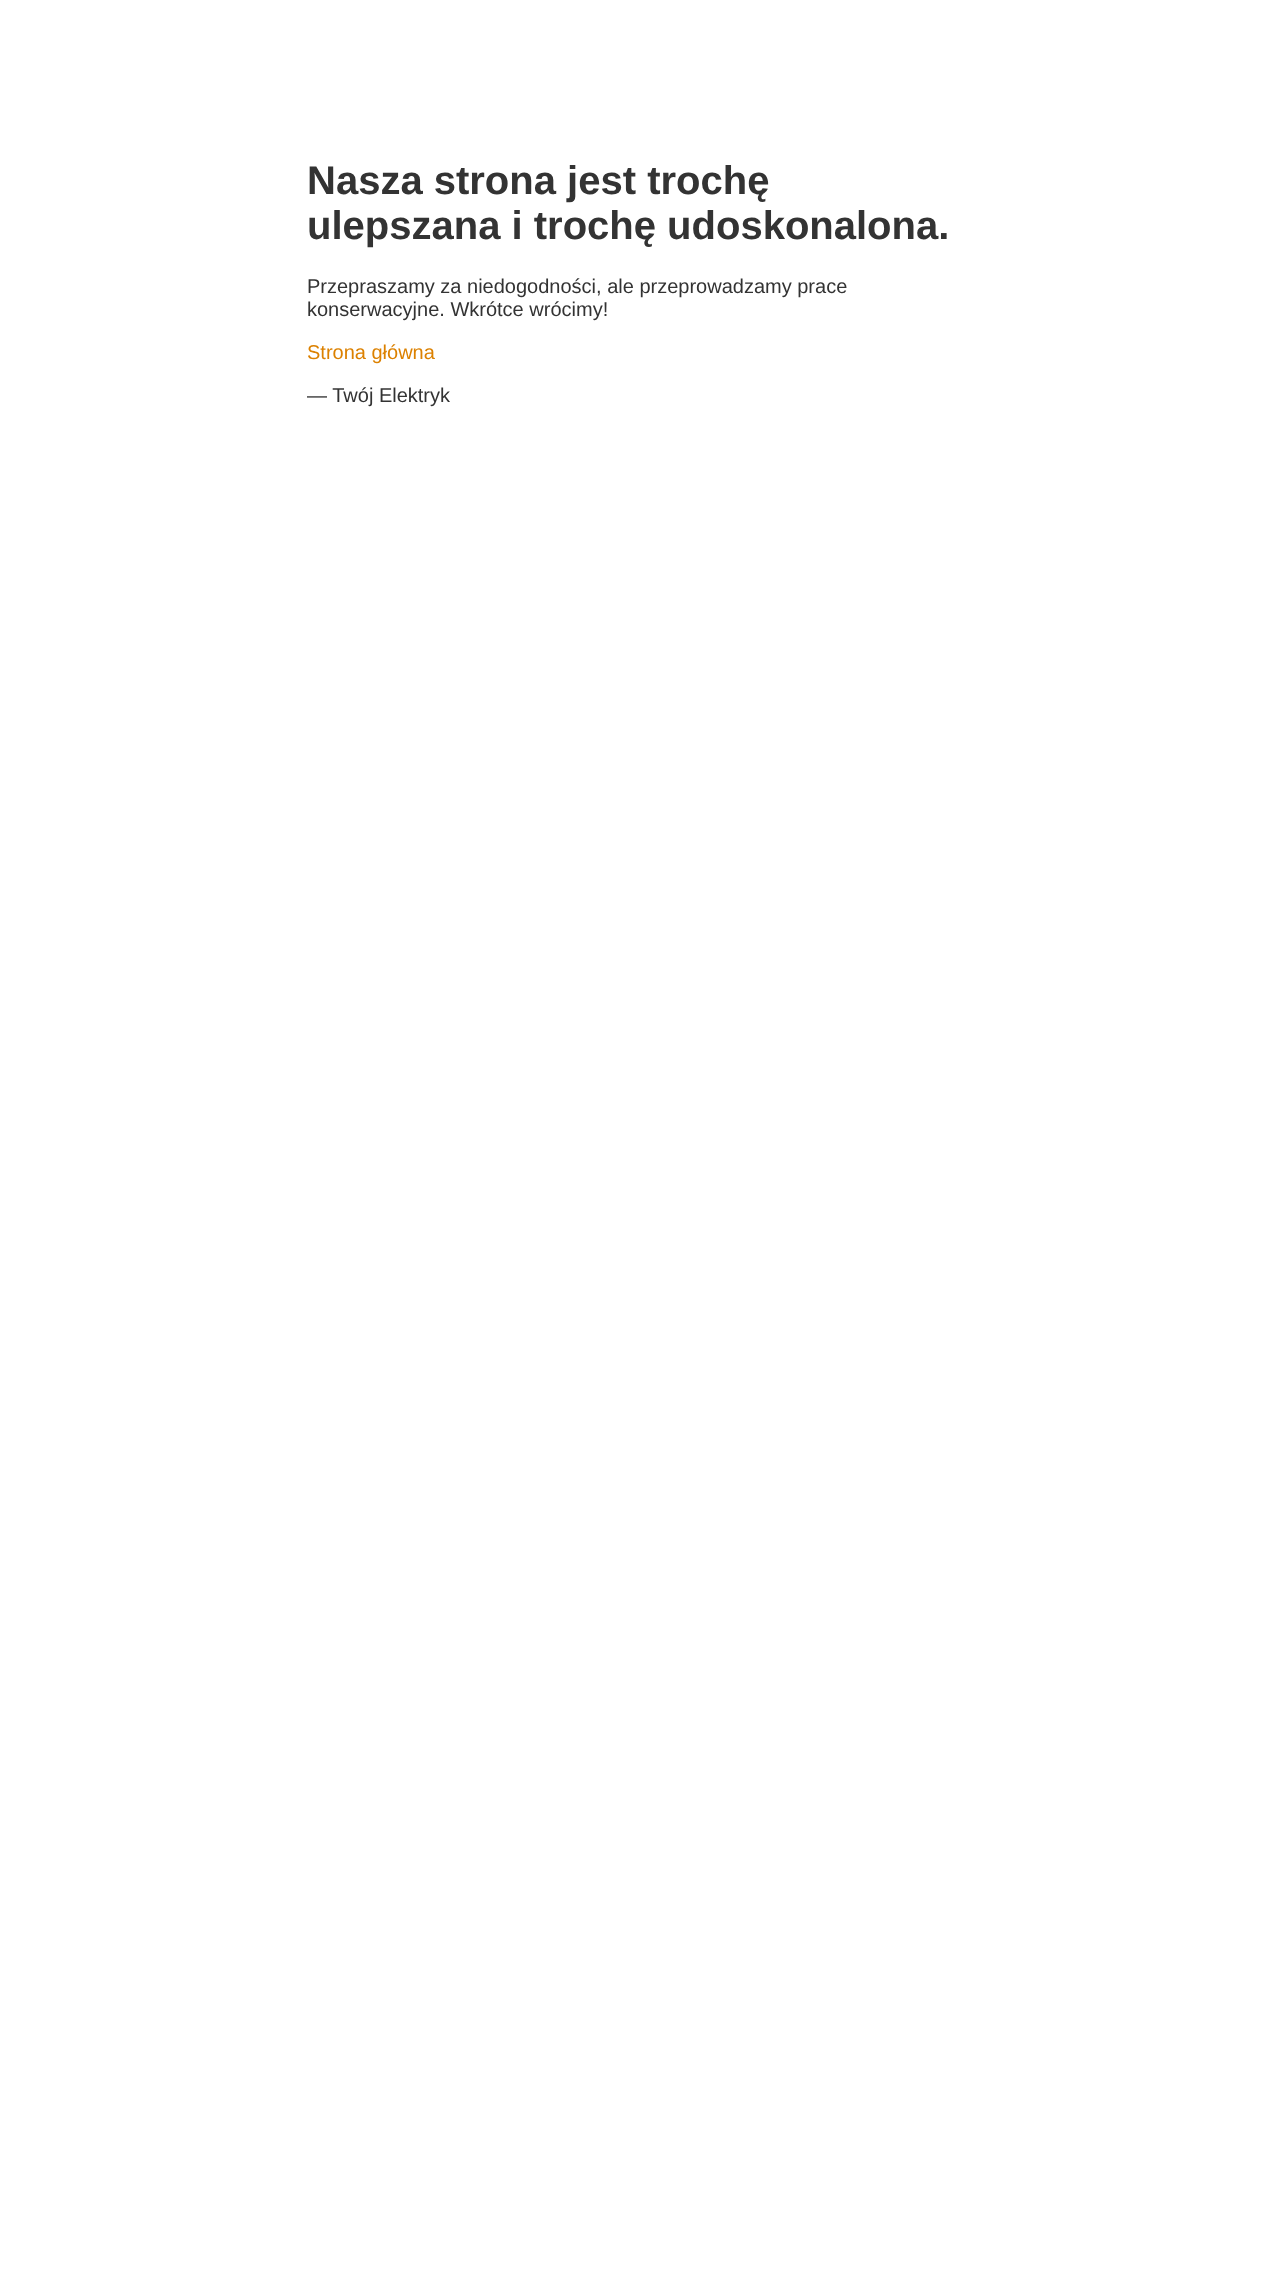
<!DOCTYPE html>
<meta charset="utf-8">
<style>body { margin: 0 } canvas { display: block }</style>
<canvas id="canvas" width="1264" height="2275"></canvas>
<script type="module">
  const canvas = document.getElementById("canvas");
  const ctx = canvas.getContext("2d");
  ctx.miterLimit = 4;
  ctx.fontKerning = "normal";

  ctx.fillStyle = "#ffffff";
  ctx.fillRect(0, 0, 1264, 2275);
  ctx.font = "bold 40px Liberation Sans";
  ctx.fillStyle = "#333333";
  ctx.fillText("Nasza strona jest trochę", 307, 194);
  ctx.fillText("ulepszana i trochę udoskonalona.", 307, 239);
  ctx.font = "20px Liberation Sans";
  ctx.fillText("Przepraszamy za niedogodności, ale przeprowadzamy prace", 307, 293);
  ctx.fillText("konserwacyjne. Wkrótce wrócimy!", 307, 316);
  ctx.fillStyle = "#dc8100";
  ctx.fillText("Strona główna", 307, 359);
  ctx.fillStyle = "#333333";
  ctx.fillText("— Twój Elektryk", 307, 402);
</script>
